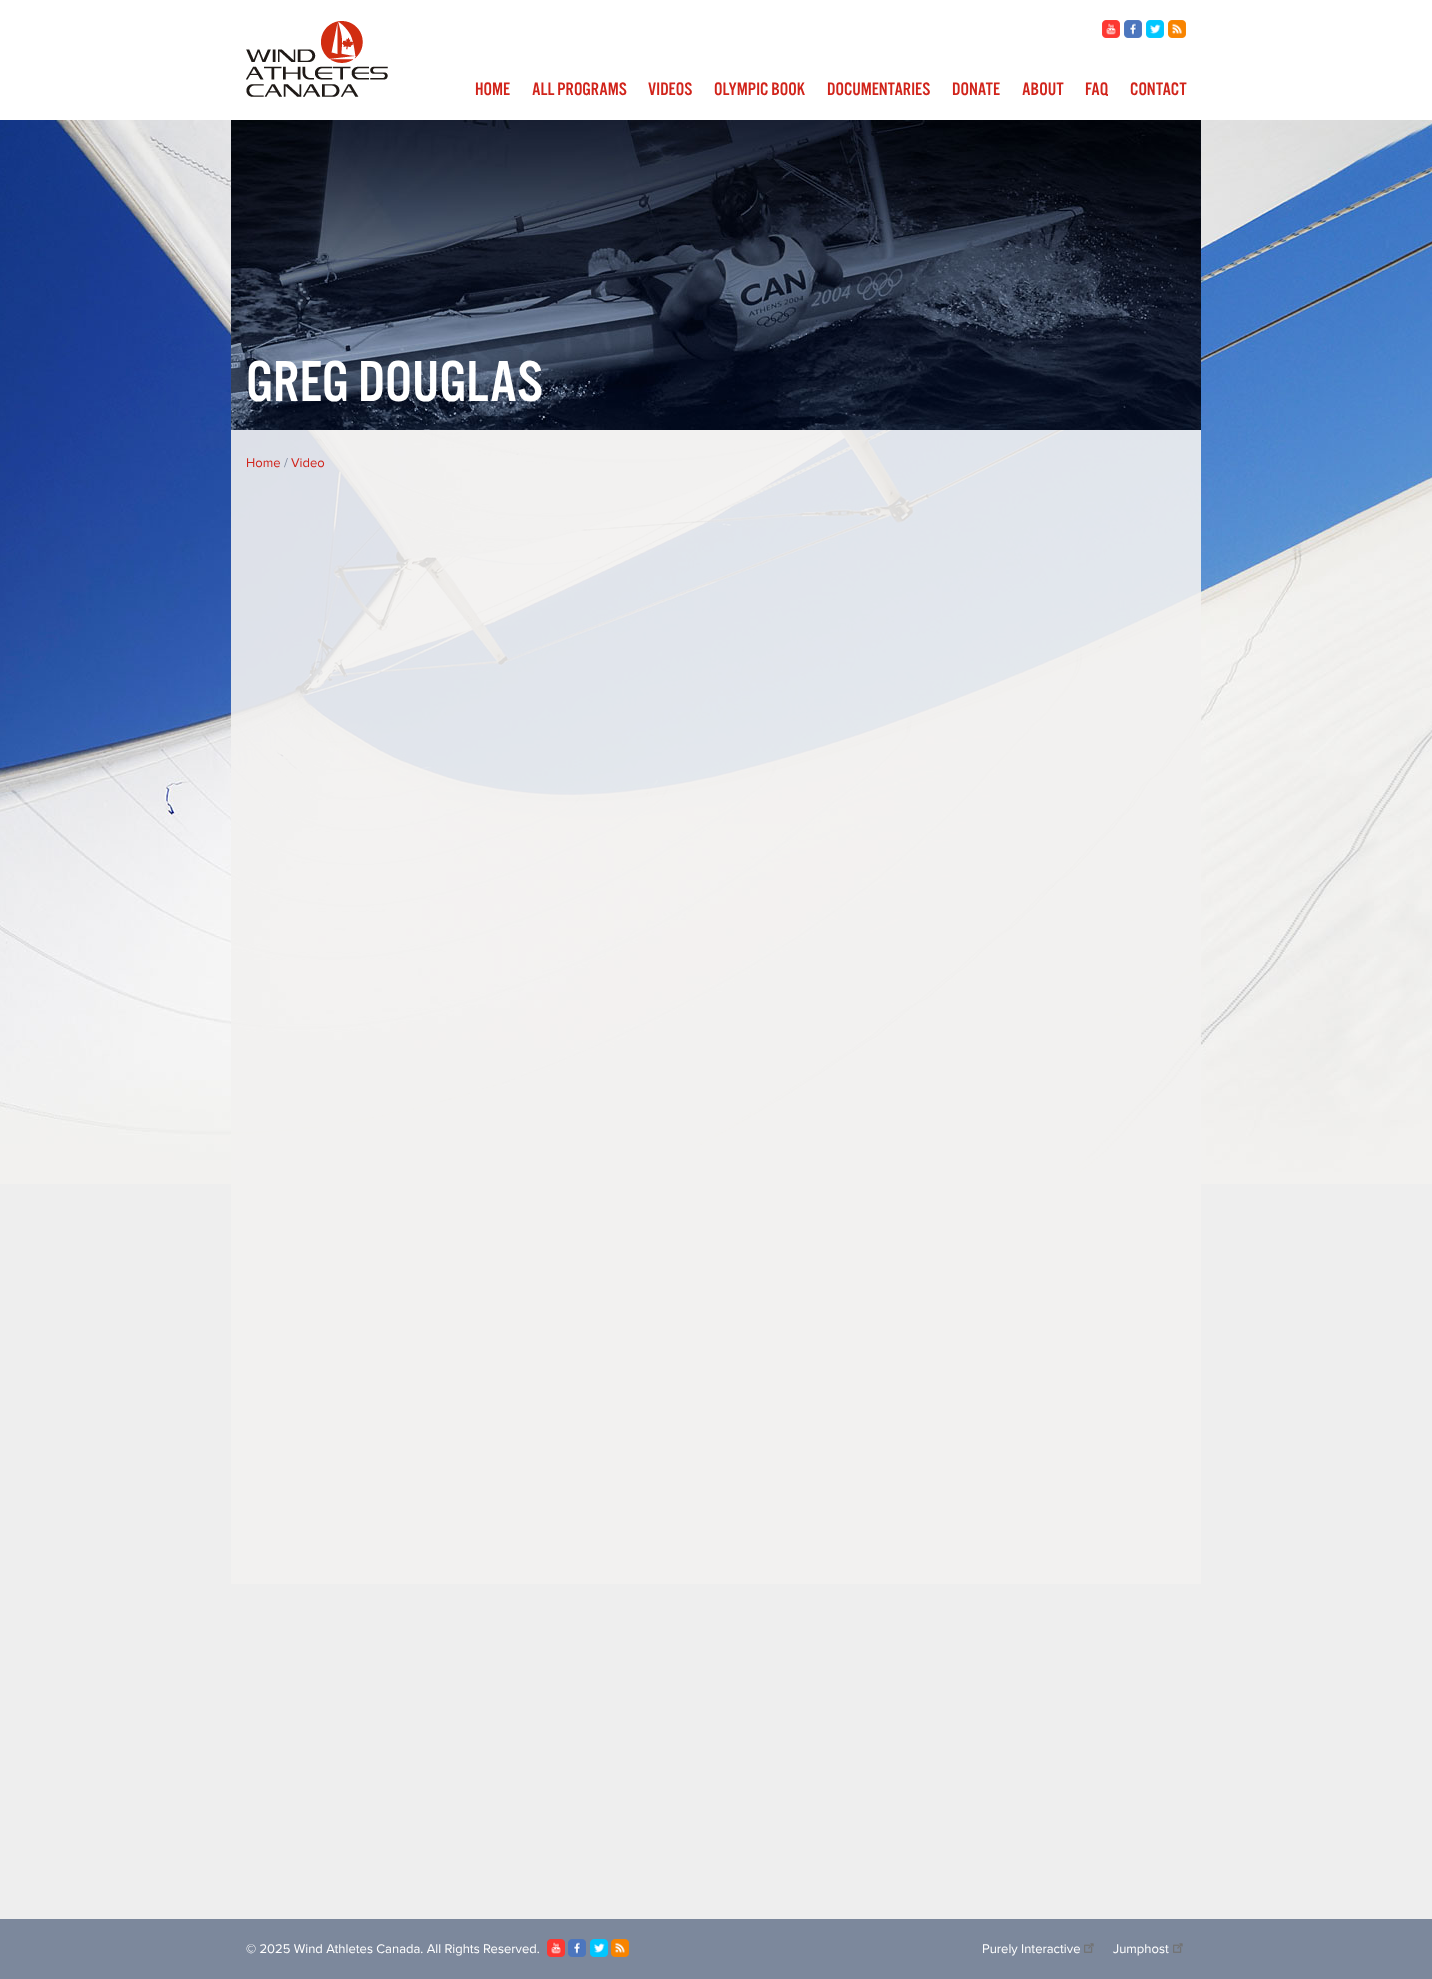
<!DOCTYPE html>
<meta charset="utf-8">
<style>body { margin: 0 } canvas { display: block }</style>
<canvas id="canvas" width="1432" height="1979"></canvas>
<script type="module">
  const canvas = document.getElementById("canvas");
  const ctx = canvas.getContext("2d");
  ctx.miterLimit = 4;
  ctx.fontKerning = "normal";
  async function loadImage(src) {
    const img = new Image();
    img.src = src;
    await img.decode();
    return img;
  }

  ctx.fillStyle = "#eeeeee";
  ctx.fillRect(0, 0, 1432, 1979);
  ctx.drawImage(await loadImage("img1.png"), 0, 120, 1432, 1064);
  ctx.fillStyle = "#ffffff";
  ctx.fillRect(0, 0, 1432, 120);
  ctx.drawImage(await loadImage("img2.png"), 246, 21, 142, 76);
  ctx.drawImage(await loadImage("img3.png"), 1102, 20, 18, 18);
  ctx.drawImage(await loadImage("img4.png"), 1124, 20, 18, 18);
  ctx.drawImage(await loadImage("img5.png"), 1146, 20, 18, 18);
  ctx.drawImage(await loadImage("img6.png"), 1168, 20, 18, 18);
  ctx.font = "18.75px 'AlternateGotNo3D'";
  ctx.fillStyle = "#d1241b";
  ctx.fillText("HOME", 475, 95);
  ctx.fillText("ALL PROGRAMS", 532, 95);
  ctx.fillText("VIDEOS", 648, 95);
  ctx.fillText("OLYMPIC BOOK", 714, 95);
  ctx.fillText("DOCUMENTARIES", 827, 95);
  ctx.fillText("DONATE", 952, 95);
  ctx.fillText("ABOUT", 1022, 95);
  ctx.fillText("FAQ", 1085, 95);
  ctx.fillText("CONTACT", 1130, 95);
  ctx.fillStyle = "rgba(242, 241, 239, 0.9)";
  ctx.fillRect(231, 430, 970, 1154);
  ctx.drawImage(await loadImage("img7.png"), 231, 120, 970, 310);
  ctx.font = "60px 'AlternateGotNo3D'";
  ctx.fillStyle = "#ffffff";
  ctx.fillText("GREG DOUGLAS", 246, 401);
  ctx.font = "13px Proxima Nova";
  ctx.fillStyle = "#d1241b";
  ctx.fillText("Home", 246, 467);
  ctx.fillStyle = "#7c889c";
  ctx.fillText("/", 284, 467);
  ctx.fillStyle = "#d1241b";
  ctx.fillText("Video", 291, 467);
  ctx.fillStyle = "#7c889c";
  ctx.fillRect(0, 1919, 1432, 60);
  ctx.fillStyle = "#ffffff";
  ctx.fillText("© 2025 Wind Athletes Canada. All Rights Reserved.", 246, 1953);
  ctx.drawImage(await loadImage("img8.png"), 547, 1939, 18, 18);
  ctx.drawImage(await loadImage("img9.png"), 568, 1939, 18, 18);
  ctx.drawImage(await loadImage("img10.png"), 590, 1939, 18, 18);
  ctx.drawImage(await loadImage("img11.png"), 611, 1939, 18, 18);
  ctx.fillText("Purely Interactive", 982, 1953);
  ctx.drawImage(await loadImage("img12.png"), 1084, 1943, 10, 10);
  ctx.fillText("Jumphost", 1113, 1953);
  ctx.drawImage(await loadImage("img12.png"), 1173, 1943, 10, 10);
</script>
